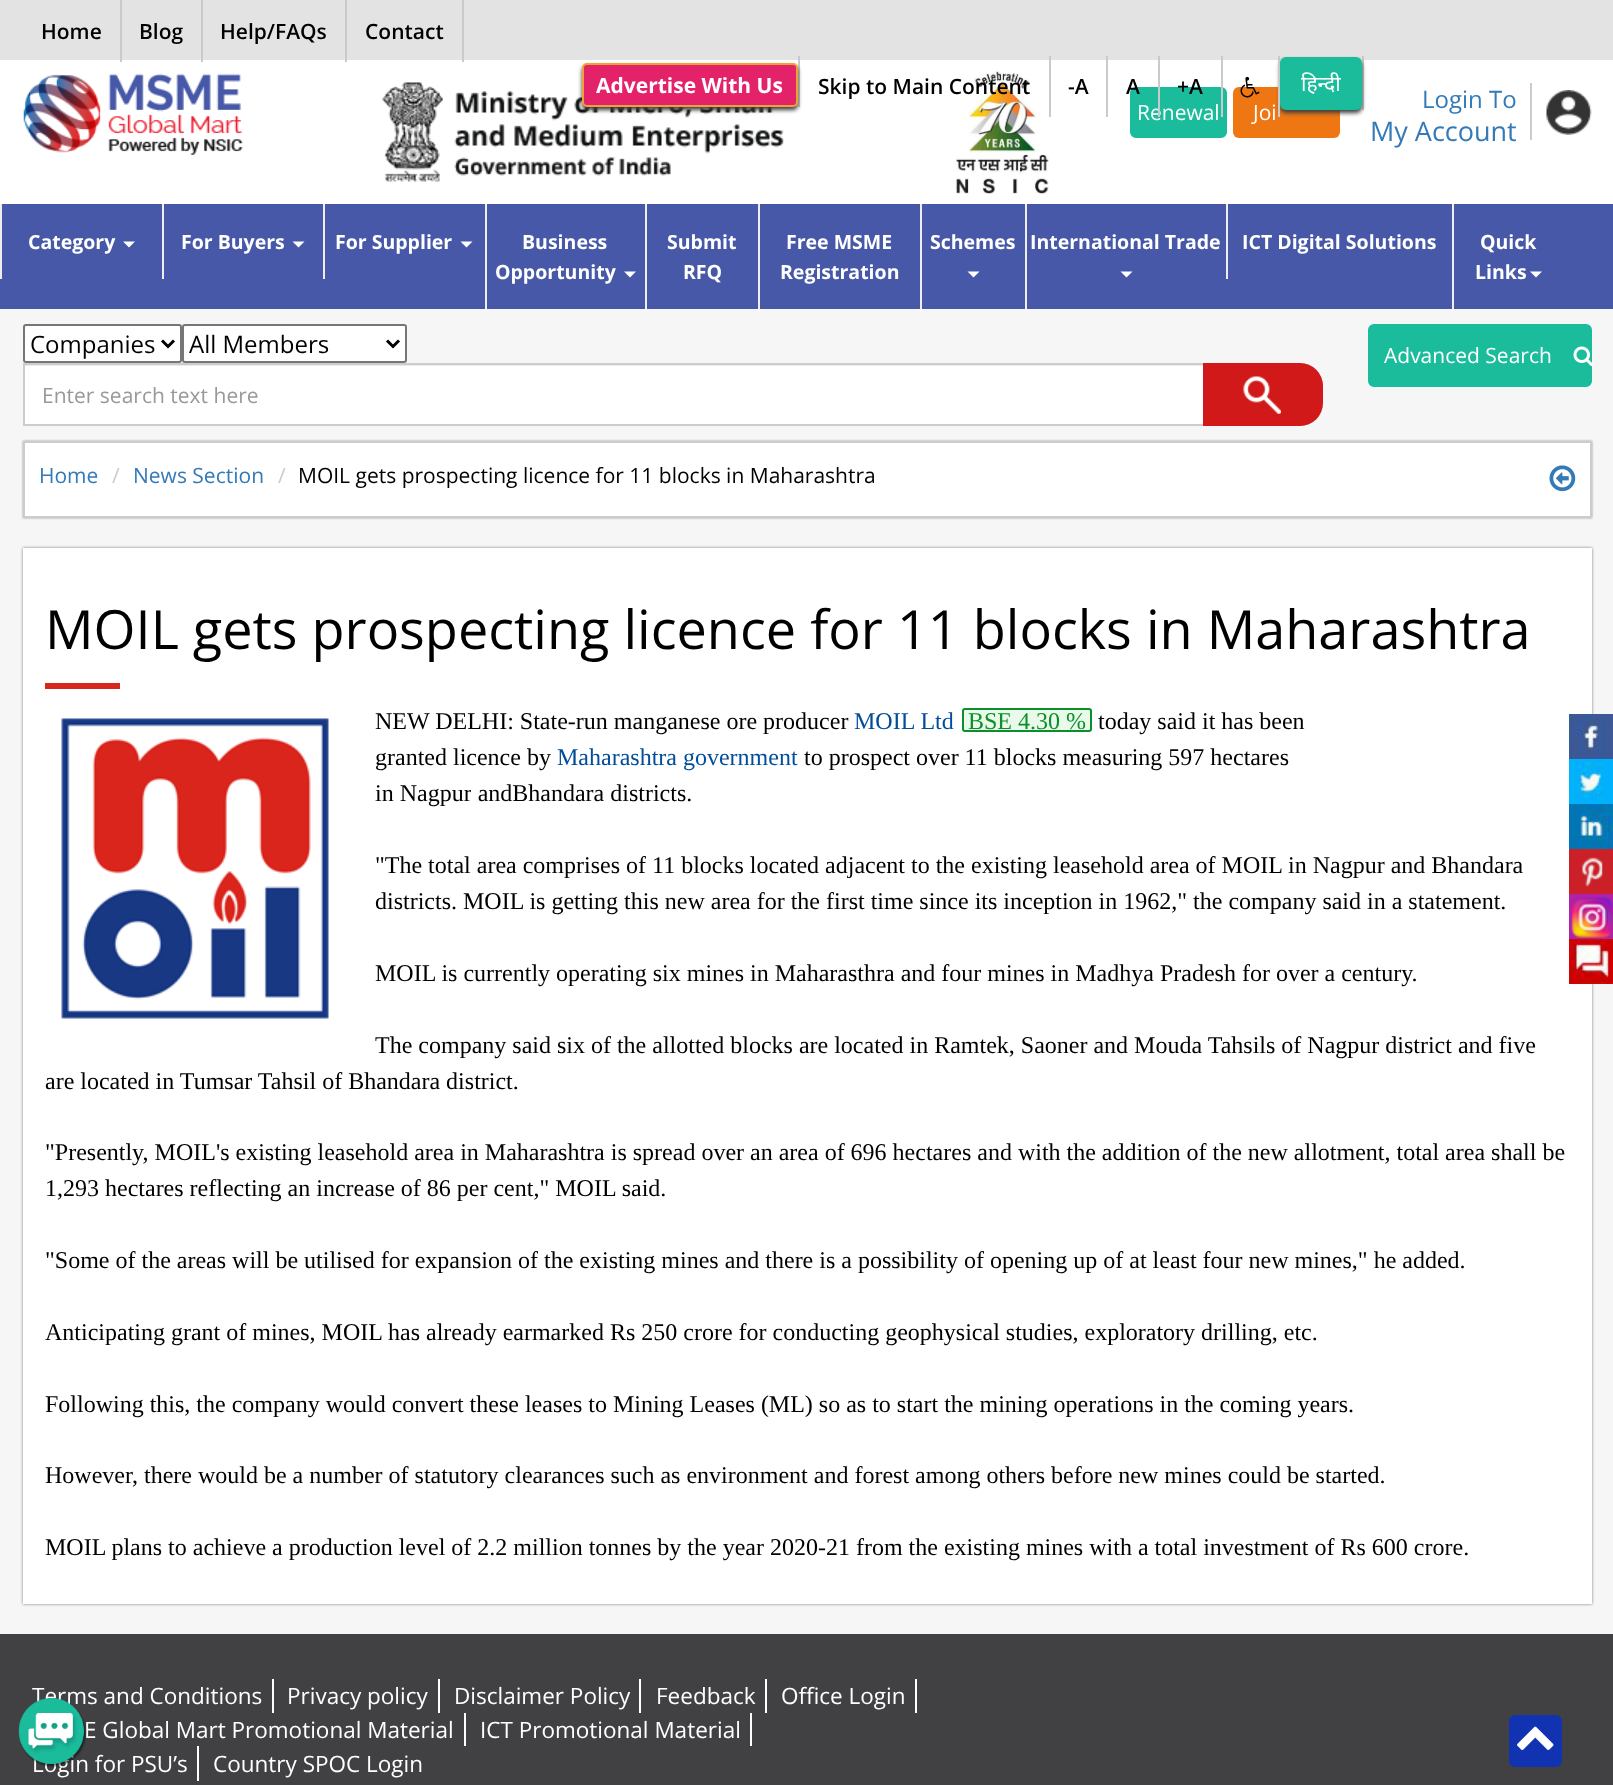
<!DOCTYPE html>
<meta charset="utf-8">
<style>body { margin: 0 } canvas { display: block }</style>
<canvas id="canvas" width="1613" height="1785"></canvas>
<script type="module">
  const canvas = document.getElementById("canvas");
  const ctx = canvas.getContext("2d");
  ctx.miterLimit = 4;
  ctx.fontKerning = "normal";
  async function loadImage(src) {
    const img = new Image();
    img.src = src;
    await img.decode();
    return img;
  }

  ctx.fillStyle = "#f6f6f6";
  ctx.fillRect(0, 0, 1613, 1785);
  ctx.fillStyle = "#e3e3e3";
  ctx.fillRect(0, 0, 1613, 60);
  ctx.fillStyle = "#ffffff";
  ctx.fillRect(0, 60, 1613, 144);
  ctx.fillStyle = "#cacaca";
  ctx.fillRect(120, 0, 2, 62);
  ctx.font = "600 21px Open Sans";
  ctx.fillStyle = "#000000";
  ctx.fillText("Home", 41, 39);
  ctx.fillStyle = "#cacaca";
  ctx.fillRect(201, 0, 2, 62);
  ctx.fillStyle = "#000000";
  ctx.fillText("Blog", 139, 39);
  ctx.fillStyle = "#cacaca";
  ctx.fillRect(345, 0, 2, 62);
  ctx.fillStyle = "#000000";
  ctx.fillText("Help/FAQs", 220, 39);
  ctx.fillStyle = "#cacaca";
  ctx.fillRect(462, 0, 2, 62);
  ctx.fillStyle = "#000000";
  ctx.fillText("Contact", 365, 39);
  ctx.fillStyle = "#cacaca";
  ctx.fillRect(798, 56, 2, 51);
  ctx.drawImage(await loadImage("img3.png"), 382, 82, 402, 100);
  ctx.fillStyle = "#3e3d3d";
  ctx.filter = "blur(2px)";
  ctx.beginPath();
  ctx.roundRect(582, 66, 216, 44, 5);
  ctx.fill();
  ctx.filter = "none";
  ctx.fillStyle = "#e32269";
  ctx.beginPath();
  ctx.roundRect(583, 64, 214, 42, 4);
  ctx.fill();
  ctx.strokeStyle = "#eea236";
  ctx.lineWidth = 2;
  ctx.stroke();
  ctx.font = "bold 21px Open Sans";
  ctx.fillStyle = "#ffffff";
  ctx.fillText("Advertise With Us", 596, 93);
  ctx.fillStyle = "#cacaca";
  ctx.fillRect(1049, 56, 2, 61);
  ctx.drawImage(await loadImage("img4.png"), 955, 71, 94, 123);
  ctx.font = "600 21px Open Sans";
  ctx.fillStyle = "#000000";
  ctx.fillText("Skip to Main Content", 818, 94);
  ctx.fillStyle = "#cacaca";
  ctx.fillRect(1106, 56, 2, 61);
  ctx.fillStyle = "#000000";
  ctx.fillText("-A", 1068, 94);
  ctx.fillStyle = "#1abc9c";
  ctx.beginPath();
  ctx.roundRect(1131, 88, 95, 49, 5);
  ctx.fill();
  ctx.strokeStyle = "#1abc9c";
  ctx.stroke();
  ctx.font = "21px Open Sans";
  ctx.fillStyle = "#ffffff";
  ctx.fillText("Renewal", 1137, 120);
  ctx.fillStyle = "#cacaca";
  ctx.fillRect(1158, 56, 2, 61);
  ctx.font = "600 21px Open Sans";
  ctx.fillStyle = "#000000";
  ctx.fillText("A", 1126, 94);
  ctx.fillStyle = "#cacaca";
  ctx.fillRect(1221, 56, 2, 61);
  ctx.fillStyle = "#000000";
  ctx.fillText("+A", 1177, 94);
  ctx.fillStyle = "#cacaca";
  ctx.fillRect(1362, 56, 2, 54);
  ctx.fillStyle = "#ef7713";
  ctx.beginPath();
  ctx.roundRect(1233, 87, 107, 51, 6);
  ctx.fill();
  ctx.fillStyle = "#3e3d3d";
  ctx.filter = "blur(2px)";
  ctx.beginPath();
  ctx.roundRect(1280, 60, 82, 53, 6);
  ctx.fill();
  ctx.filter = "none";
  ctx.fillStyle = "#cacaca";
  ctx.fillRect(1278, 56, 2, 61);
  ctx.drawImage(await loadImage("img1.png"), 1240, 76, 20, 22);
  ctx.fillStyle = "#1abc9c";
  ctx.beginPath();
  ctx.roundRect(1281, 58, 80, 51, 5);
  ctx.fill();
  ctx.stroke();
  ctx.font = "21px Noto Sans";
  ctx.fillStyle = "#ffffff";
  ctx.fillText("हिन्दी", 1301, 91);
  ctx.drawImage(await loadImage("img2.png"), 23, 73, 220, 82);
  ctx.font = "21px Open Sans";
  ctx.fillText("Joi", 1253, 120);
  ctx.font = "24px Open Sans";
  ctx.fillStyle = "#337ab7";
  ctx.fillText("Login To", 1422, 108);
  ctx.font = "27px Open Sans";
  ctx.fillText("My Account", 1370, 141);
  ctx.fillStyle = "#cccccc";
  ctx.fillRect(1530, 83, 2, 57);
  ctx.drawImage(await loadImage("img5.png"), 1546, 90, 46, 45);
  ctx.fillStyle = "#4658a7";
  ctx.fillRect(0, 204, 1613, 105);
  ctx.fillStyle = "#eeeeee";
  ctx.fillRect(0, 204, 2, 75);
  ctx.font = "bold 19.5px Open Sans";
  ctx.fillStyle = "#ffffff";
  ctx.fillText("Category", 28, 249);
  ctx.beginPath();
  ctx.moveTo(123, 241.5);
  ctx.lineTo(135, 241.5);
  ctx.lineTo(129, 247.5);
  ctx.closePath();
  ctx.fill();
  ctx.fillStyle = "#eeeeee";
  ctx.fillRect(162, 204, 2, 75);
  ctx.fillStyle = "#ffffff";
  ctx.fillText("For Buyers", 181, 249);
  ctx.beginPath();
  ctx.moveTo(292.5, 241.5);
  ctx.lineTo(304.5, 241.5);
  ctx.lineTo(298.5, 247.5);
  ctx.closePath();
  ctx.fill();
  ctx.fillStyle = "#eeeeee";
  ctx.fillRect(323, 204, 2, 75);
  ctx.fillStyle = "#ffffff";
  ctx.fillText("For Supplier", 335, 249);
  ctx.beginPath();
  ctx.moveTo(460.5, 241.5);
  ctx.lineTo(472.5, 241.5);
  ctx.lineTo(466.5, 247.5);
  ctx.closePath();
  ctx.fill();
  ctx.fillStyle = "#eeeeee";
  ctx.fillRect(485, 204, 2, 105);
  ctx.fillStyle = "#ffffff";
  ctx.fillText("Business", 522, 249);
  ctx.fillText("Opportunity", 495, 279);
  ctx.beginPath();
  ctx.moveTo(624, 271.5);
  ctx.lineTo(636, 271.5);
  ctx.lineTo(630, 277.5);
  ctx.closePath();
  ctx.fill();
  ctx.fillStyle = "#eeeeee";
  ctx.fillRect(645, 204, 2, 105);
  ctx.fillStyle = "#ffffff";
  ctx.fillText("Submit", 667, 249);
  ctx.fillText("RFQ", 683, 279);
  ctx.fillStyle = "#eeeeee";
  ctx.fillRect(758, 204, 2, 105);
  ctx.fillStyle = "#ffffff";
  ctx.fillText("Free MSME", 786, 249);
  ctx.fillText("Registration", 780, 279);
  ctx.fillStyle = "#eeeeee";
  ctx.fillRect(920, 204, 2, 105);
  ctx.fillStyle = "#ffffff";
  ctx.fillText("Schemes", 930, 249);
  ctx.beginPath();
  ctx.moveTo(967.5, 271.5);
  ctx.lineTo(979.5, 271.5);
  ctx.lineTo(973.5, 277.5);
  ctx.closePath();
  ctx.fill();
  ctx.fillStyle = "#eeeeee";
  ctx.fillRect(1025, 204, 2, 105);
  ctx.fillStyle = "#ffffff";
  ctx.fillText("International Trade", 1030, 249);
  ctx.beginPath();
  ctx.moveTo(1120.5, 271.5);
  ctx.lineTo(1132.5, 271.5);
  ctx.lineTo(1126.5, 277.5);
  ctx.closePath();
  ctx.fill();
  ctx.fillStyle = "#eeeeee";
  ctx.fillRect(1226, 204, 2, 75);
  ctx.fillStyle = "#ffffff";
  ctx.fillText("ICT Digital Solutions", 1242, 249);
  ctx.fillStyle = "#eeeeee";
  ctx.fillRect(1452, 204, 2, 105);
  ctx.fillStyle = "#ffffff";
  ctx.fillText("Quick", 1480, 249);
  ctx.fillText("Links", 1475, 279);
  ctx.beginPath();
  ctx.moveTo(1530, 271.5);
  ctx.lineTo(1542, 271.5);
  ctx.lineTo(1536, 277.5);
  ctx.closePath();
  ctx.fill();
  ctx.beginPath();
  ctx.roundRect(24, 325, 157, 37, 2);
  ctx.fill();
  ctx.strokeStyle = "#767676";
  ctx.stroke();
  ctx.beginPath();
  ctx.moveTo(162, 340.5);
  ctx.lineTo(168, 346.5);
  ctx.lineTo(174, 340.5);
  ctx.strokeStyle = "#000000";
  ctx.lineWidth = 3;
  ctx.stroke();
  ctx.font = "24px Open Sans";
  ctx.fillStyle = "#000000";
  ctx.fillText("Companies", 30, 353);
  ctx.fillStyle = "#ffffff";
  ctx.beginPath();
  ctx.roundRect(183, 325, 223, 37, 2);
  ctx.fill();
  ctx.strokeStyle = "#767676";
  ctx.lineWidth = 2;
  ctx.stroke();
  ctx.beginPath();
  ctx.moveTo(387, 340.5);
  ctx.lineTo(393, 346.5);
  ctx.lineTo(399, 340.5);
  ctx.strokeStyle = "#000000";
  ctx.lineWidth = 3;
  ctx.stroke();
  ctx.fillStyle = "#000000";
  ctx.fillText("All Members", 189, 353);
  ctx.fillStyle = "#ffffff";
  ctx.beginPath();
  ctx.roundRect(23, 363, 1300, 63, [0, 23, 23, 0]);
  ctx.fill();
  ctx.fillStyle = "#ececec";
  ctx.beginPath();
  ctx.moveTo(24, 366);
  ctx.lineTo(1300, 366);
  ctx.bezierCurveTo(1312, 366, 1322, 375, 1322, 387);
  ctx.bezierCurveTo(1322, 375, 1313, 365, 1301, 365);
  ctx.lineTo(24, 365);
  ctx.closePath();
  ctx.fill();
  ctx.beginPath();
  ctx.roundRect(24, 364, 1298, 61, [0, 22, 22, 0]);
  ctx.strokeStyle = "#cccccc";
  ctx.lineWidth = 2;
  ctx.stroke();
  ctx.font = "21px Open Sans";
  ctx.fillStyle = "#999999";
  ctx.fillText("Enter search text here", 42, 403);
  ctx.fillStyle = "#d11919";
  ctx.beginPath();
  ctx.roundRect(1203, 363, 120, 63, [0, 23, 23, 0]);
  ctx.fill();
  ctx.drawImage(await loadImage("img6.png"), 1243, 376, 38, 38);
  ctx.fillStyle = "#1abc9c";
  ctx.beginPath();
  ctx.roundRect(1369, 325, 222, 61, 5);
  ctx.fill();
  ctx.strokeStyle = "#1abc9c";
  ctx.stroke();
  ctx.fillStyle = "#ffffff";
  ctx.fillText("Advanced Search", 1384, 363);
  ctx.drawImage(await loadImage("img7.png"), 1573, 346, 20, 20);
  ctx.fillStyle = "rgba(0, 0, 0, 0.4)";
  ctx.filter = "blur(1px)";
  ctx.beginPath();
  ctx.rect(23, 441, 1569, 77);
  ctx.fill();
  ctx.filter = "none";
  ctx.fillStyle = "#ffffff";
  ctx.beginPath();
  ctx.rect(24, 442, 1567, 75);
  ctx.fill();
  ctx.strokeStyle = "#cccccc";
  ctx.stroke();
  ctx.fillStyle = "#337ab7";
  ctx.fillText("Home", 39, 483);
  ctx.fillStyle = "#cccccc";
  ctx.fillText("/", 112, 483);
  ctx.fillStyle = "#337ab7";
  ctx.fillText("News Section", 133, 483);
  ctx.fillStyle = "#cccccc";
  ctx.fillText("/", 278, 483);
  ctx.fillStyle = "#000000";
  ctx.fillText("MOIL gets prospecting licence for 11 blocks in Maharashtra", 298, 483);
  ctx.drawImage(await loadImage("img8.png"), 1549, 465, 27, 27);
  ctx.fillStyle = "rgba(0, 0, 0, 0.5)";
  ctx.filter = "blur(1.5px)";
  ctx.beginPath();
  ctx.rect(23, 548, 1569, 1056);
  ctx.fill();
  ctx.filter = "none";
  ctx.fillStyle = "#ffffff";
  ctx.fillRect(23, 548, 1569, 1056);
  ctx.font = "54px Open Sans";
  ctx.fillStyle = "#000000";
  ctx.fillText("MOIL gets prospecting licence for 11 blocks in Maharashtra", 45, 649);
  ctx.fillStyle = "#d8261c";
  ctx.fillRect(45, 683, 75, 6);
  ctx.font = "24px Liberation Serif";
  ctx.fillStyle = "#000000";
  ctx.fillText("NEW DELHI: State-run manganese ore producer", 375, 729);
  ctx.fillStyle = "#024d99";
  ctx.fillText("MOIL Ltd", 854, 729);
  ctx.fillStyle = "#eafaea";
  ctx.beginPath();
  ctx.roundRect(963, 709, 128, 22, 2);
  ctx.fill();
  ctx.strokeStyle = "#0c8f2b";
  ctx.stroke();
  ctx.fillStyle = "#0c8f2b";
  ctx.fillText("BSE 4.30 %", 968, 729);
  ctx.fillStyle = "#000000";
  ctx.fillText("today said it has been", 1098, 729);
  ctx.fillText("granted licence by", 375, 765);
  ctx.fillStyle = "#024d99";
  ctx.fillText("Maharashtra government", 557, 765);
  ctx.fillStyle = "#000000";
  ctx.fillText("to prospect over 11 blocks measuring 597 hectares", 804, 765);
  ctx.fillText("in Nagpur andBhandara districts.", 375, 801);
  ctx.fillStyle = "#ffffff";
  ctx.fillRect(471, 789, 1, 4);
  ctx.fillStyle = "#000000";
  ctx.fillText("\"The total area comprises of 11 blocks located adjacent to the existing leasehold area of MOIL in Nagpur and Bhandara", 375, 873);
  ctx.fillText("districts. MOIL is getting this new area for the first time since its inception in 1962,\" the company said in a statement.", 375, 909);
  ctx.fillText("MOIL is currently operating six mines in Maharasthra and four mines in Madhya Pradesh for over a century.", 375, 981);
  ctx.fillText("The company said six of the allotted blocks are located in Ramtek, Saoner and Mouda Tahsils of Nagpur district and five", 375, 1053);
  ctx.fillText("are located in Tumsar Tahsil of Bhandara district.", 45, 1089);
  ctx.fillText("\"Presently, MOIL's existing leasehold area in Maharashtra is spread over an area of 696 hectares and with the addition of the new allotment, total area shall be", 45, 1160);
  ctx.fillText("1,293 hectares reflecting an increase of 86 per cent,\" MOIL said.", 45, 1196);
  ctx.fillText("\"Some of the areas will be utilised for expansion of the existing mines and there is a possibility of opening up of at least four new mines,\" he added.", 45, 1268);
  ctx.fillText("Anticipating grant of mines, MOIL has already earmarked Rs 250 crore for conducting geophysical studies, exploratory drilling, etc.", 45, 1340);
  ctx.fillText("Following this, the company would convert these leases to Mining Leases (ML) so as to start the mining operations in the coming years.", 45, 1412);
  ctx.fillText("However, there would be a number of statutory clearances such as environment and forest among others before new mines could be started.", 45, 1483);
  ctx.fillText("MOIL plans to achieve a production level of 2.2 million tonnes by the year 2020-21 from the existing mines with a total investment of Rs 600 crore.", 45, 1555);
  ctx.drawImage(await loadImage("img9.png"), 61, 718, 268, 301);
  ctx.drawImage(await loadImage("img10.png"), 1569, 714, 44, 45);
  ctx.fillStyle = "#01b1fd";
  ctx.fillRect(1569, 759, 3, 45);
  ctx.drawImage(await loadImage("img11.png"), 1572, 759, 41, 45);
  ctx.drawImage(await loadImage("img12.png"), 1569, 804, 44, 45);
  ctx.fillStyle = "#cb2027";
  ctx.fillRect(1569, 849, 44, 45);
  ctx.drawImage(await loadImage("img13.png"), 1582, 857, 21, 30);
  ctx.fillStyle = "#b023a7";
  ctx.fillRect(1569, 894, 44, 45);
  ctx.drawImage(await loadImage("img14.png"), 1571, 896, 42, 42);
  ctx.drawImage(await loadImage("img15.png"), 1569, 939, 44, 45);
  ctx.fillStyle = "#414042";
  ctx.fillRect(0, 1634, 1613, 151);
  ctx.fillStyle = "#ffffff";
  ctx.fillRect(272, 1679, 2, 34);
  ctx.font = "22.5px Open Sans";
  ctx.fillText("Terms and Conditions", 32, 1704);
  ctx.fillRect(438, 1679, 2, 34);
  ctx.fillText("Privacy policy", 287, 1704);
  ctx.fillRect(639, 1679, 2, 34);
  ctx.fillText("Disclaimer Policy", 454, 1704);
  ctx.fillRect(765, 1679, 2, 34);
  ctx.fillText("Feedback", 656, 1704);
  ctx.fillRect(915, 1679, 2, 34);
  ctx.fillText("Office Login", 781, 1704);
  ctx.fillRect(464, 1713, 2, 33);
  ctx.fillText("E Global Mart Promotional Material", 84, 1738);
  ctx.fillRect(750, 1713, 2, 33);
  ctx.fillText("ICT Promotional Material", 480, 1738);
  ctx.fillRect(197, 1746, 2, 35);
  ctx.fillText("Login for PSU’s", 32, 1772);
  ctx.fillText("Country SPOC Login", 213, 1772);
  ctx.drawImage(await loadImage("img16.png"), 18, 1698, 69, 70);
  ctx.fillStyle = "#1133b1";
  ctx.beginPath();
  ctx.roundRect(1509, 1715, 53, 52, 6);
  ctx.fill();
  ctx.drawImage(await loadImage("img17.png"), 1517, 1726, 37, 24);
</script>
